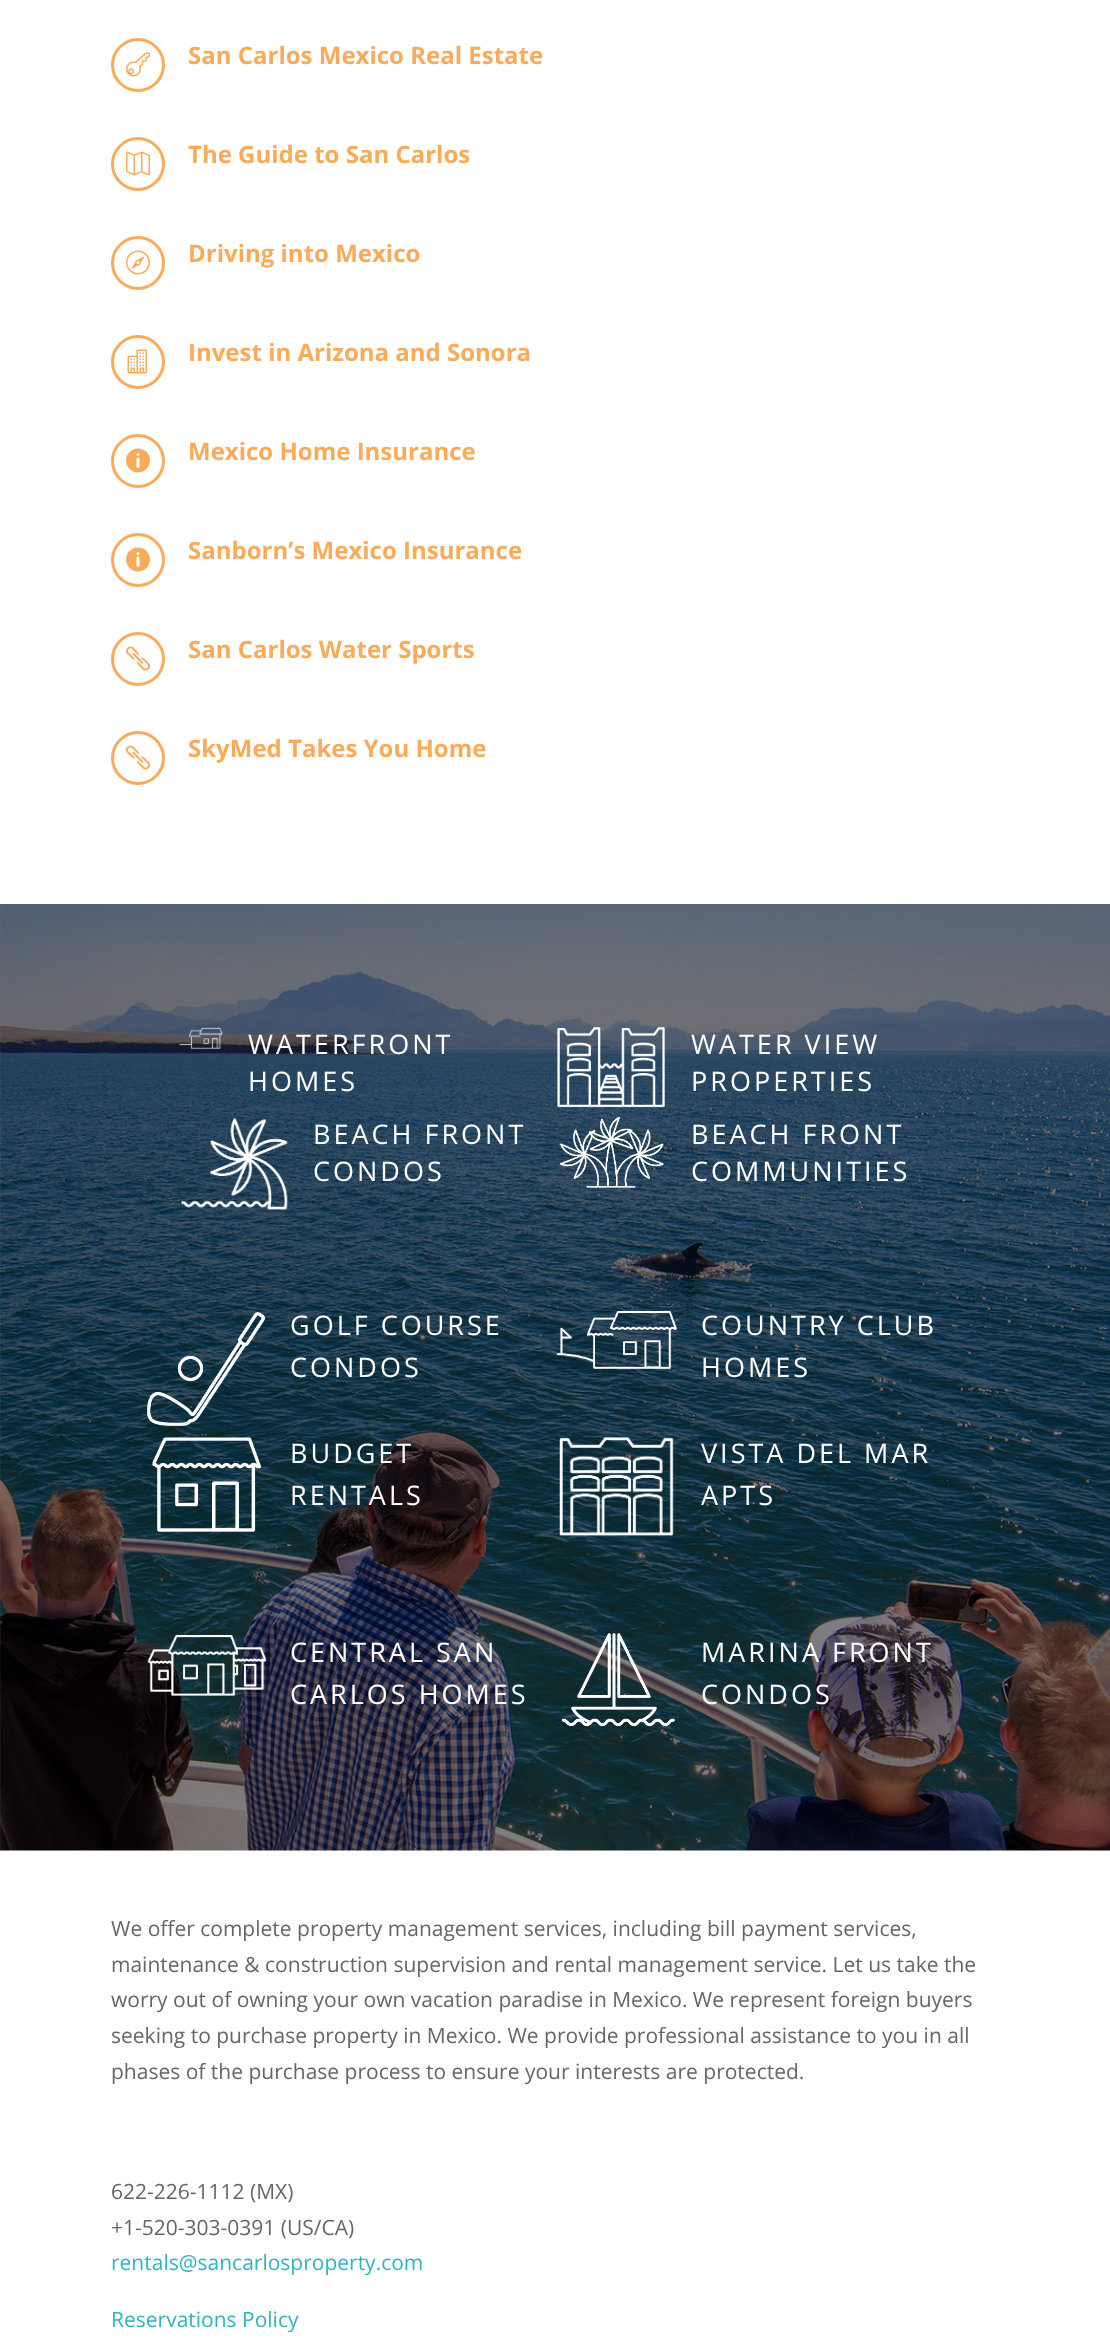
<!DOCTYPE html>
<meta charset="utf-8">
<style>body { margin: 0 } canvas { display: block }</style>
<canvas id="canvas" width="1110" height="2342"></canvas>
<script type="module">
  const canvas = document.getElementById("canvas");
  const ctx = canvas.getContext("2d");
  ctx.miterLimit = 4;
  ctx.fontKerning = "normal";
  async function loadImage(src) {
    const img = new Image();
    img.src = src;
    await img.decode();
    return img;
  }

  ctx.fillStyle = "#ffffff";
  ctx.fillRect(0, 0, 1110, 2342);
  ctx.beginPath();
  ctx.arc(138, 65, 25.5, 0, Math.PI * 2);
  ctx.strokeStyle = "#faab59";
  ctx.lineWidth = 3;
  ctx.stroke();
  ctx.drawImage(await loadImage("img1.png"), 126, 52, 24, 25);
  ctx.font = "bold 24px Open Sans";
  ctx.fillStyle = "#faab59";
  ctx.fillText("San Carlos Mexico Real Estate", 188, 64);
  ctx.beginPath();
  ctx.arc(138, 164, 25.5, 0, Math.PI * 2);
  ctx.stroke();
  ctx.drawImage(await loadImage("img2.png"), 126, 151, 24, 25);
  ctx.fillText("The Guide to San Carlos", 188, 163);
  ctx.beginPath();
  ctx.arc(138, 263, 25.5, 0, Math.PI * 2);
  ctx.stroke();
  ctx.drawImage(await loadImage("img3.png"), 126, 250, 24, 25);
  ctx.fillText("Driving into Mexico", 188, 262);
  ctx.beginPath();
  ctx.arc(138, 362, 25.5, 0, Math.PI * 2);
  ctx.stroke();
  ctx.drawImage(await loadImage("img4.png"), 127, 349, 20, 25);
  ctx.fillText("Invest in Arizona and Sonora", 188, 361);
  ctx.beginPath();
  ctx.arc(138, 461, 25.5, 0, Math.PI * 2);
  ctx.stroke();
  ctx.drawImage(await loadImage("img5.png"), 126, 448, 24, 25);
  ctx.fillText("Mexico Home Insurance", 188, 460);
  ctx.beginPath();
  ctx.arc(138, 560, 25.5, 0, Math.PI * 2);
  ctx.stroke();
  ctx.drawImage(await loadImage("img5.png"), 126, 547, 24, 25);
  ctx.fillText("Sanborn’s Mexico Insurance", 188, 559);
  ctx.beginPath();
  ctx.arc(138, 659, 25.5, 0, Math.PI * 2);
  ctx.stroke();
  ctx.drawImage(await loadImage("img6.png"), 126, 646, 24, 25);
  ctx.fillText("San Carlos Water Sports", 188, 658);
  ctx.beginPath();
  ctx.arc(138, 758, 25.5, 0, Math.PI * 2);
  ctx.stroke();
  ctx.drawImage(await loadImage("img6.png"), 126, 745, 24, 25);
  ctx.fillText("SkyMed Takes You Home", 188, 757);
  ctx.drawImage(await loadImage("img7.png"), 0, 904, 1110, 947);
  ctx.drawImage(await loadImage("img8.png"), 179, 1027, 44, 22);
  ctx.letterSpacing = "3px";
  ctx.font = "27px Open Sans";
  ctx.fillStyle = "#ffffff";
  ctx.fillText("WATERFRONT", 248, 1054);
  ctx.fillText("HOMES", 248, 1091);
  ctx.drawImage(await loadImage("img9.png"), 557, 1027, 109, 81);
  ctx.fillText("WATER VIEW", 691, 1054);
  ctx.fillText("PROPERTIES", 691, 1091);
  ctx.drawImage(await loadImage("img10.png"), 180, 1118, 108, 92);
  ctx.fillText("BEACH FRONT", 313, 1144);
  ctx.fillText("CONDOS", 313, 1181);
  ctx.drawImage(await loadImage("img11.png"), 560, 1116, 104, 72);
  ctx.fillText("BEACH FRONT", 691, 1144);
  ctx.fillText("COMMUNITIES", 691, 1181);
  ctx.drawImage(await loadImage("img12.png"), 147, 1312, 119, 114);
  ctx.fillText("GOLF COURSE", 290, 1335);
  ctx.fillText("CONDOS", 290, 1377);
  ctx.drawImage(await loadImage("img13.png"), 556, 1311, 122, 58);
  ctx.fillText("COUNTRY CLUB", 701, 1335);
  ctx.fillText("HOMES", 701, 1377);
  ctx.drawImage(await loadImage("img14.png"), 152, 1437, 110, 95);
  ctx.fillText("BUDGET", 290, 1463);
  ctx.fillText("RENTALS", 290, 1505);
  ctx.drawImage(await loadImage("img15.png"), 559, 1437, 115, 100);
  ctx.fillText("VISTA DEL MAR", 701, 1463);
  ctx.fillText("APTS", 701, 1505);
  ctx.drawImage(await loadImage("img16.png"), 147, 1635, 120, 61);
  ctx.fillText("CENTRAL SAN", 290, 1662);
  ctx.fillText("CARLOS HOMES", 290, 1704);
  ctx.drawImage(await loadImage("img17.png"), 561, 1633, 114, 94);
  ctx.fillText("MARINA FRONT", 701, 1662);
  ctx.fillText("CONDOS", 701, 1704);
  ctx.letterSpacing = "0px";
  ctx.font = "21px Open Sans";
  ctx.fillStyle = "#666666";
  ctx.fillText("We offer complete property management services, including bill payment services,", 111, 1936);
  ctx.fillText("maintenance & construction supervision and rental management service. Let us take the", 111, 1972);
  ctx.fillText("worry out of owning your own vacation paradise in Mexico. We represent foreign buyers", 111, 2007);
  ctx.fillText("seeking to purchase property in Mexico. We provide professional assistance to you in all", 111, 2043);
  ctx.fillText("phases of the purchase process to ensure your interests are protected.", 111, 2079);
  ctx.fillText("622-226-1112 (MX)", 111, 2199);
  ctx.fillText("+1-520-303-0391 (US/CA)", 111, 2235);
  ctx.fillStyle = "#30b4c0";
  ctx.fillText("rentals@sancarlosproperty.com", 111, 2270);
  ctx.fillText("Reservations Policy", 111, 2327);
</script>
